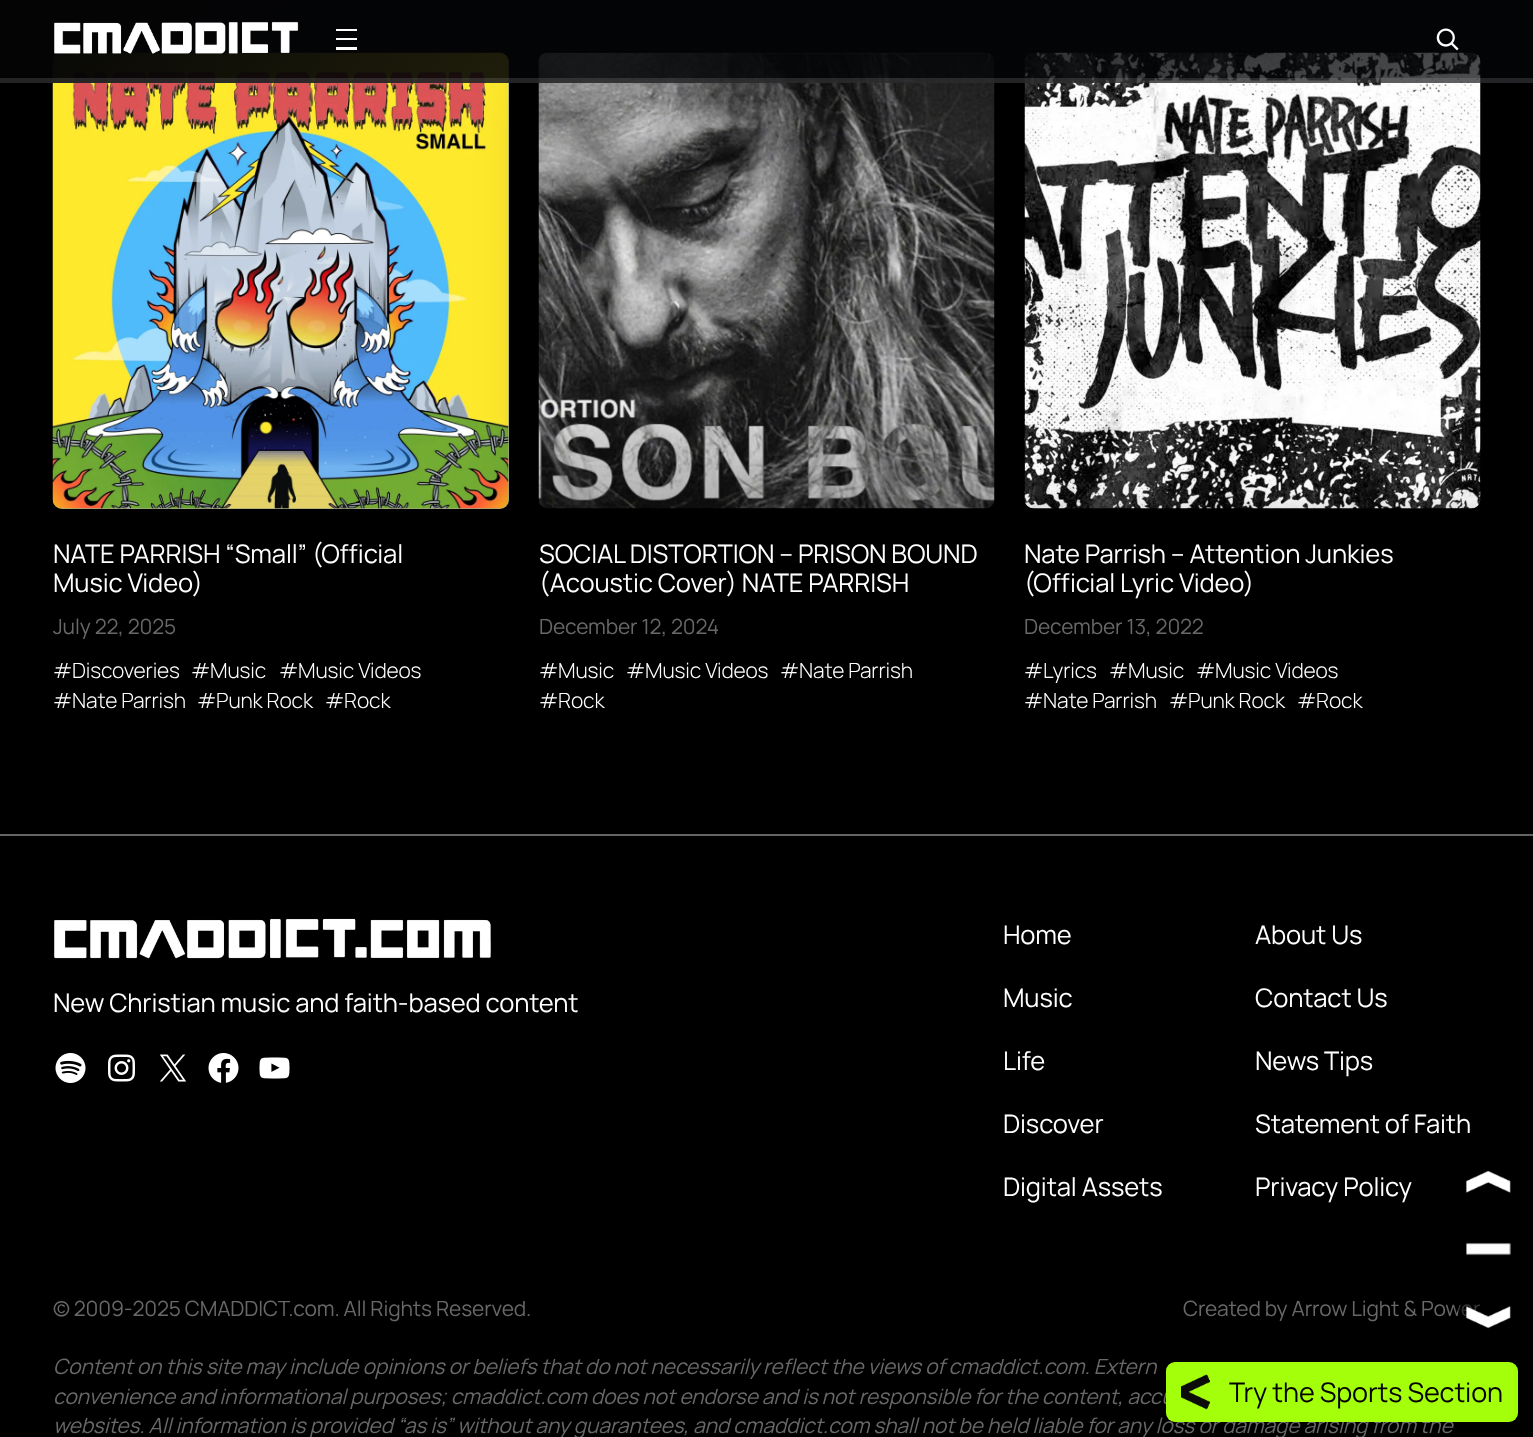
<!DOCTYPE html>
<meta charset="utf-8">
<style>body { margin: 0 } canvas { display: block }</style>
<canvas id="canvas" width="1533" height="1437"></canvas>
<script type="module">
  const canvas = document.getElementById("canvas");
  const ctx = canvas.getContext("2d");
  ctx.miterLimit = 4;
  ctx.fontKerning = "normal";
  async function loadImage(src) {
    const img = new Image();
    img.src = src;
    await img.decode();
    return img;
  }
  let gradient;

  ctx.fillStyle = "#000000";
  ctx.fillRect(0, 0, 1533, 1437);
  ctx.fillStyle = "rgba(0, 0, 0, 0.4)";
  ctx.filter = "blur(37.5px)";
  ctx.beginPath();
  ctx.roundRect(71, 71, 456, 456, 9);
  ctx.fill();
  ctx.filter = "none";
  ctx.fillStyle = "#a7ad80";
  ctx.beginPath();
  ctx.roundRect(53, 53, 456, 456, 9);
  ctx.fill();
  ctx.drawImage(await loadImage("img3.png"), 52, 52, 457, 457);
  ctx.fillStyle = "rgba(0, 0, 0, 0.4)";
  ctx.filter = "blur(37.5px)";
  ctx.beginPath();
  ctx.roundRect(557, 71, 456, 456, 9);
  ctx.fill();
  ctx.filter = "none";
  ctx.drawImage(await loadImage("img4.png"), 538, 52, 457, 457);
  ctx.filter = "blur(37.5px)";
  ctx.beginPath();
  ctx.roundRect(1043, 71, 456, 456, 9);
  ctx.fill();
  ctx.filter = "none";
  ctx.drawImage(await loadImage("img5.png"), 1024, 52, 457, 457);
  gradient = ctx.createLinearGradient(364, -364, 1169, 442);
  gradient.addColorStop(0, "#040405");
  gradient.addColorStop(1, "rgba(4, 6, 9, 0.7)");
  ctx.fillStyle = gradient;
  ctx.fillRect(0, 0, 1533, 78);
  gradient = ctx.createLinearGradient(364, -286, 1169, 520);
  gradient.addColorStop(0, "#040405");
  gradient.addColorStop(1, "rgba(4, 6, 9, 0.7)");
  ctx.fillStyle = gradient;
  ctx.fillRect(0, 78, 1533, 5);
  ctx.fillStyle = "rgba(255, 255, 255, 0.13)";
  ctx.fillRect(0, 78, 1533, 5);
  ctx.drawImage(await loadImage("img1.png"), 54, 21, 245, 33);
  ctx.fillStyle = "#ffffff";
  ctx.fillRect(336, 29, 21, 2);
  ctx.fillRect(336, 38, 21, 2);
  ctx.fillRect(336, 47, 21, 3);
  ctx.drawImage(await loadImage("img2.png"), 1436, 28, 23, 23);
  ctx.letterSpacing = "-0.15px";
  ctx.font = "25.6px Manrope";
  ctx.fillText("NATE PARRISH “Small” (Official", 53, 563);
  ctx.fillText("Music Video)", 53, 592);
  ctx.font = "21px Manrope";
  ctx.fillStyle = "#686868";
  ctx.fillText("July 22, 2025", 53, 634);
  ctx.font = "300 21px Manrope";
  ctx.fillStyle = "#ffffff";
  ctx.fillText("#Discoveries", 53, 678);
  ctx.fillText("#Music", 191, 678);
  ctx.fillText("#Music Videos", 279, 678);
  ctx.fillText("#Nate Parrish", 53, 708);
  ctx.fillText("#Punk Rock", 197, 708);
  ctx.fillText("#Rock", 325, 708);
  ctx.font = "25.6px Manrope";
  ctx.fillText("SOCIAL DISTORTION – PRISON BOUND", 539, 563);
  ctx.fillText("(Acoustic Cover) NATE PARRISH", 539, 592);
  ctx.font = "21px Manrope";
  ctx.fillStyle = "#686868";
  ctx.fillText("December 12, 2024", 539, 634);
  ctx.font = "300 21px Manrope";
  ctx.fillStyle = "#ffffff";
  ctx.fillText("#Music", 539, 678);
  ctx.fillText("#Music Videos", 626, 678);
  ctx.fillText("#Nate Parrish", 780, 678);
  ctx.fillText("#Rock", 539, 708);
  ctx.font = "25.6px Manrope";
  ctx.fillText("Nate Parrish – Attention Junkies", 1024, 563);
  ctx.fillText("(Official Lyric Video)", 1024, 592);
  ctx.font = "21px Manrope";
  ctx.fillStyle = "#686868";
  ctx.fillText("December 13, 2022", 1024, 634);
  ctx.font = "300 21px Manrope";
  ctx.fillStyle = "#ffffff";
  ctx.fillText("#Lyrics", 1024, 678);
  ctx.fillText("#Music", 1109, 678);
  ctx.fillText("#Music Videos", 1196, 678);
  ctx.fillText("#Nate Parrish", 1024, 708);
  ctx.fillText("#Punk Rock", 1169, 708);
  ctx.fillText("#Rock", 1297, 708);
  ctx.fillStyle = "#646464";
  ctx.fillRect(0, 834, 1533, 2);
  ctx.drawImage(await loadImage("img6.png"), 54, 918, 437, 41);
  ctx.font = "25.6px Manrope";
  ctx.fillStyle = "#ffffff";
  ctx.fillText("New Christian music and faith-based content", 53, 1012);
  ctx.drawImage(await loadImage("img7.png"), 55, 1053, 31, 30);
  ctx.drawImage(await loadImage("img8.png"), 108, 1054, 27, 28);
  ctx.drawImage(await loadImage("img9.png"), 159, 1054, 28, 28);
  ctx.drawImage(await loadImage("img10.png"), 208, 1053, 31, 30);
  ctx.drawImage(await loadImage("img11.png"), 259, 1057, 31, 22);
  ctx.fillText("Home", 1003, 944);
  ctx.fillText("Music", 1003, 1007);
  ctx.fillText("Life", 1003, 1070);
  ctx.fillText("Discover", 1003, 1133);
  ctx.fillText("Digital Assets", 1003, 1196);
  ctx.fillText("About Us", 1255, 944);
  ctx.fillText("Contact Us", 1255, 1007);
  ctx.fillText("News Tips", 1255, 1070);
  ctx.fillText("Statement of Faith", 1255, 1133);
  ctx.fillText("Privacy Policy", 1255, 1196);
  ctx.font = "21px Manrope";
  ctx.fillStyle = "#686868";
  ctx.fillText("© 2009-2025 CMADDICT.com. All Rights Reserved.", 53, 1316);
  ctx.fillText("Created by Arrow Light & Power", 1183, 1316);
  ctx.font = "italic 21px Manrope";
  ctx.fillText("Content on this site may include opinions or beliefs that do not necessarily reflect the views of cmaddict.com. Extern", 53, 1374);
  ctx.fillText("convenience and informational purposes; cmaddict.com does not endorse and is not responsible for the content, accu", 53, 1404);
  ctx.fillText("websites. All information is provided “as is” without any guarantees, and cmaddict.com shall not be held liable for any loss or damage arising from the", 53, 1433);
  ctx.drawImage(await loadImage("img12.png"), 1465, 1170, 46, 23);
  ctx.drawImage(await loadImage("img13.png"), 1466, 1242, 45, 14);
  ctx.fillStyle = "rgba(0, 0, 0, 0.5)";
  ctx.beginPath();
  ctx.roundRect(1458, 1287, 60, 60, 9);
  ctx.fill();
  ctx.drawImage(await loadImage("img14.png"), 1465, 1306, 46, 23);
  ctx.fillStyle = "#a4ff0a";
  ctx.beginPath();
  ctx.roundRect(1166, 1362, 352, 60, 9);
  ctx.fill();
  ctx.drawImage(await loadImage("img15.png"), 1181, 1374, 29, 36);
  ctx.font = "27px Manrope";
  ctx.fillStyle = "#000000";
  ctx.fillText("Try the Sports Section", 1229, 1402);
</script>
